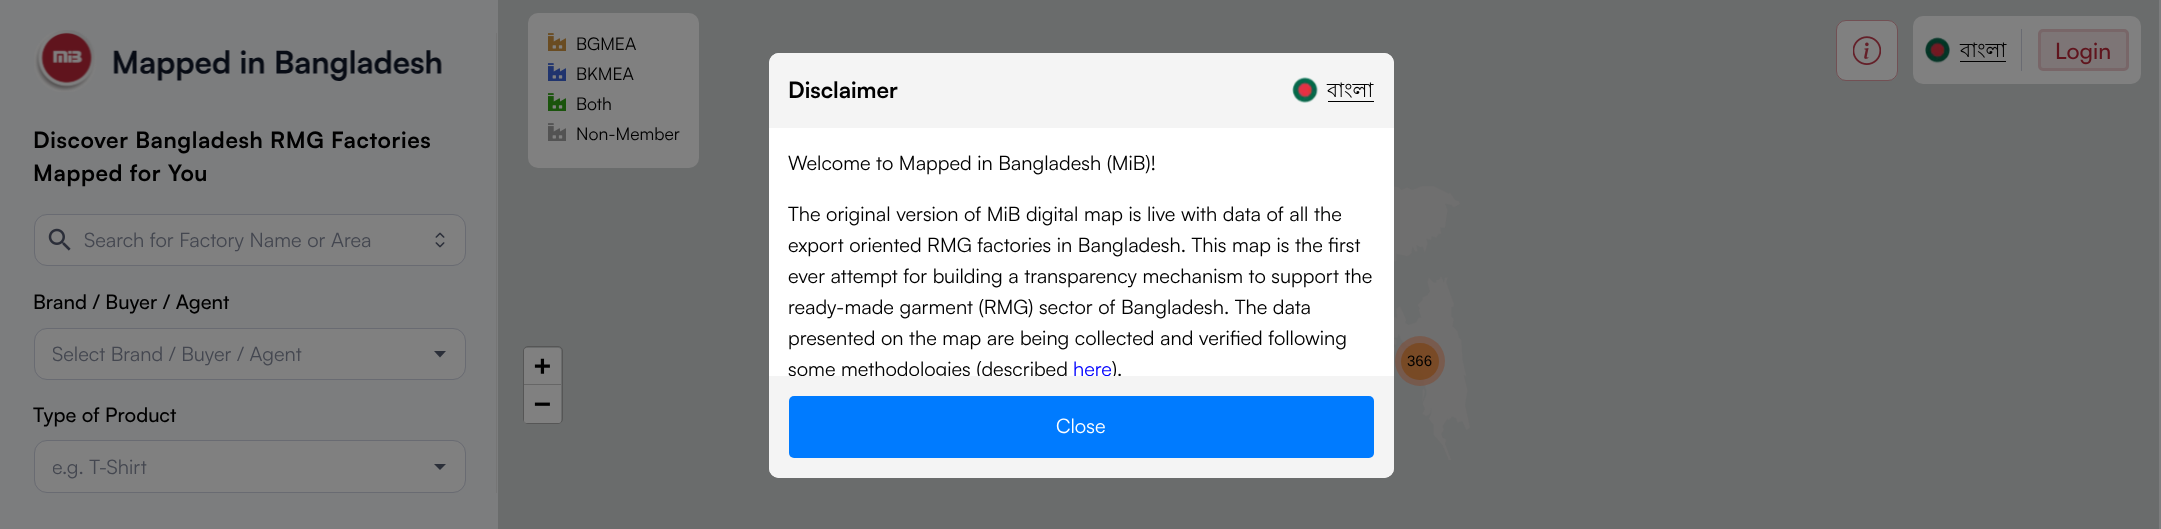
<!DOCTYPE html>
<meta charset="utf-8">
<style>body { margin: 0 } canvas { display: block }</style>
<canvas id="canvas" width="2161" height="529"></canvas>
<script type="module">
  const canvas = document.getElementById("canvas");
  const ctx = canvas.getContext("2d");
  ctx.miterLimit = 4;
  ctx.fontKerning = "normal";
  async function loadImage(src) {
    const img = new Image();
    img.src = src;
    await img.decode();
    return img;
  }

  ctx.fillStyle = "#7c7d7e";
  ctx.fillRect(0, 0, 2161, 529);
  ctx.fillStyle = "#757575";
  ctx.fillRect(496, 33, 1, 460);
  ctx.drawImage(await loadImage("img1.png"), 34, 30, 408, 62);
  ctx.letterSpacing = "0.6px";
  ctx.font = "bold 22.5px Satoshi";
  ctx.fillStyle = "#000000";
  ctx.fillText("Discover Bangladesh RMG Factories", 33, 148);
  ctx.fillText("Mapped for You", 33, 181);
  ctx.fillStyle = "#808080";
  ctx.beginPath();
  ctx.roundRect(34.5, 214.5, 431, 51, 12.5);
  ctx.fill();
  ctx.strokeStyle = "#696b72";
  ctx.stroke();
  ctx.drawImage(await loadImage("img2.png"), 48, 228, 23, 23);
  ctx.letterSpacing = "0px";
  ctx.font = "20px Satoshi";
  ctx.fillStyle = "#444750";
  ctx.fillText("Search for Factory Name or Area", 84, 247);
  ctx.drawImage(await loadImage("img3.png"), 435, 232, 10, 16);
  ctx.font = "500 20px Satoshi";
  ctx.fillStyle = "#000000";
  ctx.fillText("Brand / Buyer / Agent", 33, 309);
  ctx.fillStyle = "#808080";
  ctx.beginPath();
  ctx.roundRect(34.5, 328.5, 431, 51, 12.5);
  ctx.fill();
  ctx.stroke();
  ctx.save();
  ctx.beginPath();
  ctx.rect(53, 339, 362, 27);
  ctx.clip();
  ctx.font = "20px Satoshi";
  ctx.fillStyle = "#444750";
  ctx.fillText("Select Brand / Buyer / Agent", 52, 361);
  ctx.restore();
  ctx.fillStyle = "#2b2f39";
  ctx.beginPath();
  ctx.moveTo(434, 351);
  ctx.lineTo(440, 357.5);
  ctx.lineTo(446, 351);
  ctx.closePath();
  ctx.fill();
  ctx.fillStyle = "#000000";
  ctx.fillText("Type of Product", 33, 422);
  ctx.fillStyle = "#808080";
  ctx.beginPath();
  ctx.roundRect(34.5, 440.5, 431, 52, 12.5);
  ctx.fill();
  ctx.stroke();
  ctx.save();
  ctx.beginPath();
  ctx.rect(53, 453, 362, 27);
  ctx.clip();
  ctx.font = "20px Satoshi";
  ctx.fillStyle = "#444750";
  ctx.fillText("e.g. T-Shirt", 52, 474);
  ctx.restore();
  ctx.fillStyle = "#2b2f39";
  ctx.beginPath();
  ctx.moveTo(434, 464);
  ctx.lineTo(440, 470);
  ctx.lineTo(446, 464);
  ctx.closePath();
  ctx.fill();
  ctx.fillStyle = "#6f6f6f";
  ctx.fillRect(498, 0, 1661, 529);
  ctx.drawImage(await loadImage("img8.png"), 498, 0, 1661, 529);
  ctx.fillStyle = "#808080";
  ctx.beginPath();
  ctx.roundRect(528, 13, 171, 155, 10);
  ctx.fill();
  ctx.drawImage(await loadImage("img4.png"), 548, 33, 18, 18);
  ctx.font = "17.5px Satoshi";
  ctx.fillStyle = "#000000";
  ctx.fillText("BGMEA", 576, 50);
  ctx.drawImage(await loadImage("img5.png"), 548, 63, 18, 18);
  ctx.fillText("BKMEA", 576, 80);
  ctx.drawImage(await loadImage("img6.png"), 548, 93, 18, 18);
  ctx.fillText("Both", 576, 110);
  ctx.drawImage(await loadImage("img7.png"), 548, 123, 18, 18);
  ctx.fillText("Non-Member", 576, 140);
  ctx.beginPath();
  ctx.roundRect(523.5, 346.5, 39, 77, 4.5);
  ctx.strokeStyle = "#565656";
  ctx.stroke();
  ctx.fillStyle = "#808080";
  ctx.beginPath();
  ctx.roundRect(524, 348, 37, 37, [2.5, 2.5, 0, 0]);
  ctx.fill();
  ctx.fillStyle = "#666666";
  ctx.fillRect(524, 384, 37, 1);
  ctx.font = "bold 28px DejaVu Sans Mono";
  ctx.fillStyle = "#000000";
  ctx.fillText("+", 534, 375);
  ctx.fillStyle = "#808080";
  ctx.beginPath();
  ctx.roundRect(524, 385, 37, 38, [0, 0, 2.5, 2.5]);
  ctx.fill();
  ctx.fillStyle = "#000000";
  ctx.fillText("−", 534, 413);
  ctx.fillStyle = "rgba(127, 78, 57, 0.6)";
  ctx.beginPath();
  ctx.arc(1420, 361, 25, 0, Math.PI * 2);
  ctx.fill();
  ctx.fillStyle = "rgba(121, 64, 12, 0.6)";
  ctx.beginPath();
  ctx.roundRect(1401, 343, 38, 37, 18.5);
  ctx.fill();
  ctx.font = "15px Liberation Sans";
  ctx.fillStyle = "#000000";
  ctx.fillText("366", 1407, 366);
  ctx.fillStyle = "#ffffff";
  ctx.beginPath();
  ctx.roundRect(769, 53, 625, 425, 10);
  ctx.fill();
  ctx.fillStyle = "#f4f4f4";
  ctx.beginPath();
  ctx.roundRect(769, 53, 625, 75, [10, 10, 0, 0]);
  ctx.fill();
  ctx.font = "bold 22.5px Satoshi";
  ctx.fillStyle = "#000000";
  ctx.fillText("Disclaimer", 788, 98);
  ctx.drawImage(await loadImage("img9.png"), 1292, 77, 27, 26);
  ctx.font = "20px Lohit Bengali";
  ctx.fillText("বাংলা", 1327, 97);
  ctx.fillRect(1328, 101, 46, 1);
  ctx.font = "20px Satoshi";
  ctx.fillText("Welcome to Mapped in Bangladesh (MiB)!", 788, 170);
  ctx.fillText("The original version of MiB digital map is live with data of all the", 788, 221);
  ctx.fillText("export oriented RMG factories in Bangladesh. This map is the first", 788, 252);
  ctx.fillText("ever attempt for building a transparency mechanism to support the", 788, 283);
  ctx.fillText("ready-made garment (RMG) sector of Bangladesh. The data", 788, 314);
  ctx.fillText("presented on the map are being collected and verified following", 788, 345);
  ctx.fillText("some methodologies (described", 788, 376);
  ctx.fillStyle = "#0000ff";
  ctx.fillText("here", 1073, 376);
  ctx.fillStyle = "#000000";
  ctx.fillText(").", 1112, 376);
  ctx.fillStyle = "#f4f4f4";
  ctx.beginPath();
  ctx.roundRect(769, 376, 625, 102, [0, 0, 10, 10]);
  ctx.fill();
  ctx.fillStyle = "#007bff";
  ctx.beginPath();
  ctx.roundRect(789, 396, 585, 62, 5);
  ctx.fill();
  ctx.fillStyle = "#ffffff";
  ctx.fillText("Close", 1056, 433);
  ctx.fillStyle = "#808080";
  ctx.beginPath();
  ctx.roundRect(1836, 20, 62, 61, 10);
  ctx.fill();
  ctx.beginPath();
  ctx.roundRect(1836.5, 20.5, 61, 60, 9.5);
  ctx.strokeStyle = "rgba(100, 33, 42, 0.51)";
  ctx.stroke();
  ctx.drawImage(await loadImage("img10.png"), 1853, 36, 28, 29);
  ctx.beginPath();
  ctx.roundRect(1913, 16, 228, 68, 10);
  ctx.fill();
  ctx.drawImage(await loadImage("img11.png"), 1925, 37, 25, 27);
  ctx.font = "20px Lohit Bengali";
  ctx.fillStyle = "#000000";
  ctx.fillText("বাংলা", 1960, 57);
  ctx.fillRect(1960, 61, 46, 1);
  ctx.fillStyle = "#696b72";
  ctx.fillRect(2021, 29, 1, 42);
  ctx.fillStyle = "#7d7576";
  ctx.beginPath();
  ctx.roundRect(2039.5, 30.5, 88, 39, 3.5);
  ctx.fill();
  ctx.strokeStyle = "#786668";
  ctx.lineWidth = 3;
  ctx.stroke();
  ctx.font = "500 22.5px 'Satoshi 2'";
  ctx.fillStyle = "#60141d";
  ctx.fillText("Login", 2055, 59);
</script>
